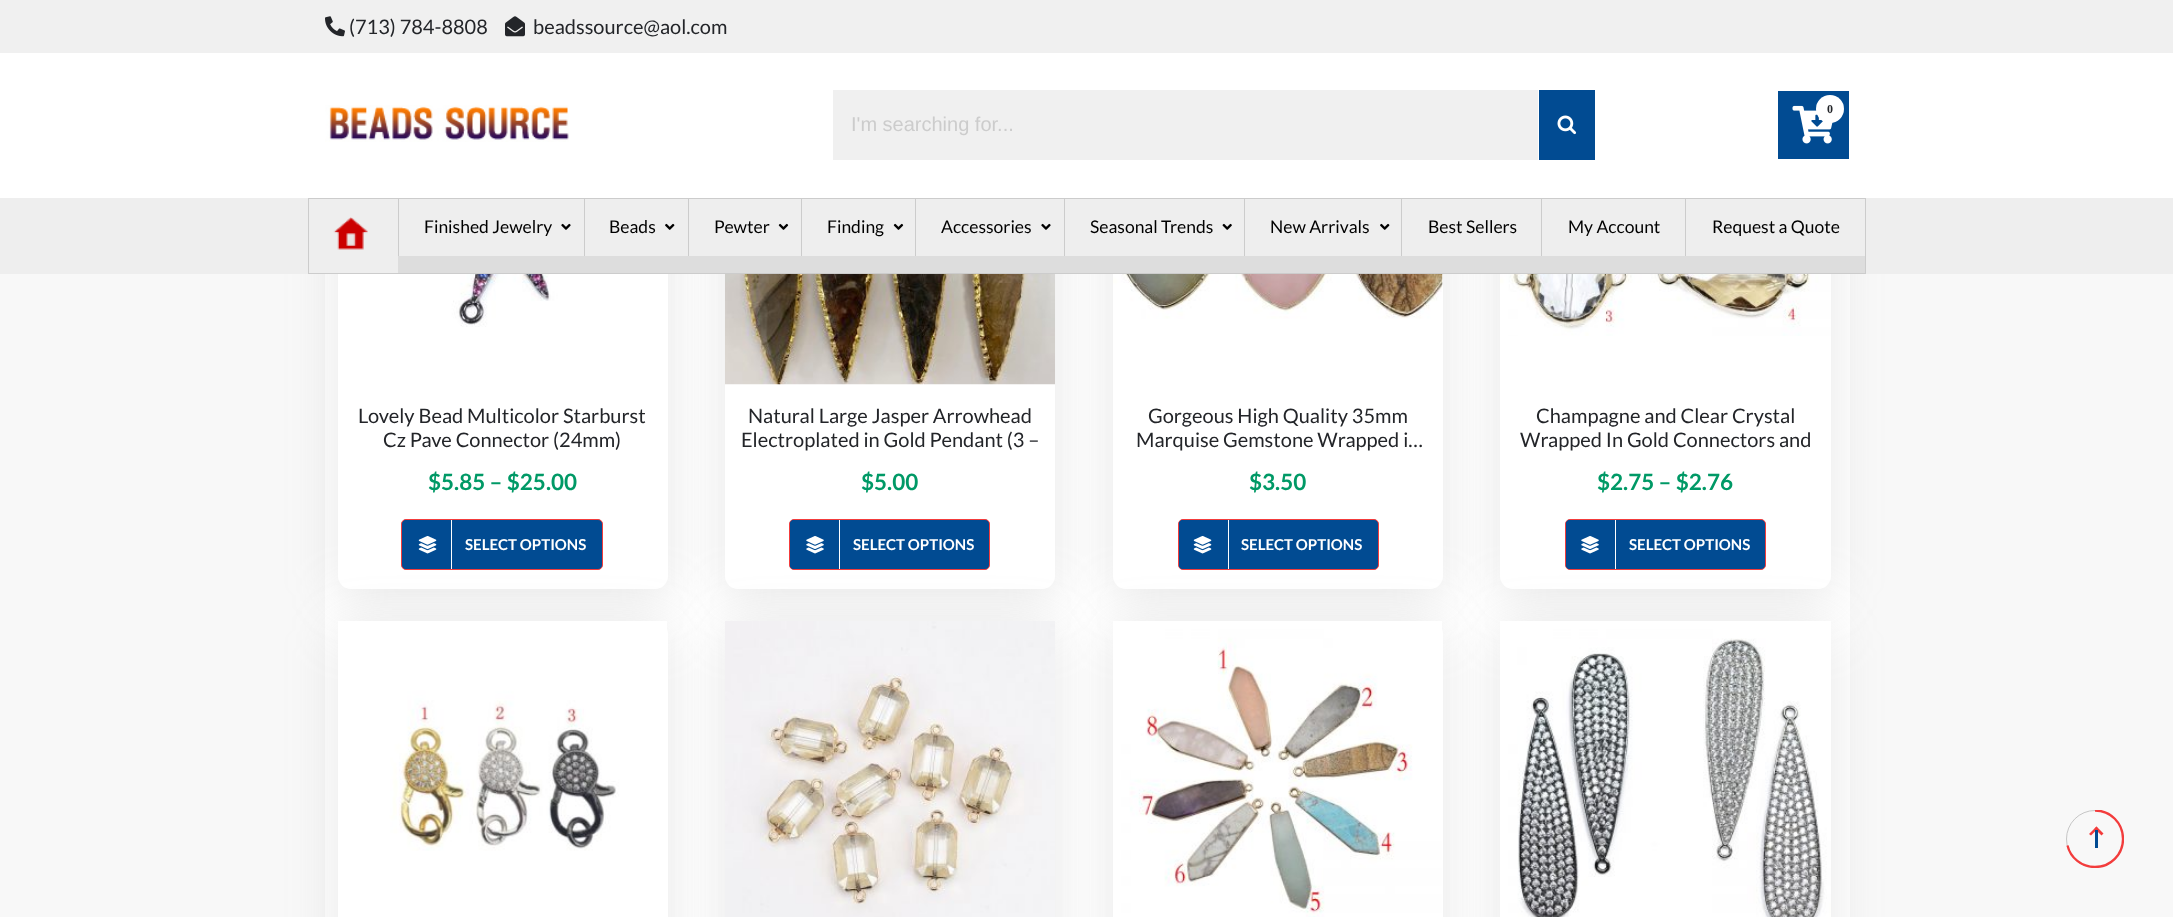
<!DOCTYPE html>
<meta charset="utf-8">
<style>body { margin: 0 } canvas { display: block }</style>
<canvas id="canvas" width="2173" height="917"></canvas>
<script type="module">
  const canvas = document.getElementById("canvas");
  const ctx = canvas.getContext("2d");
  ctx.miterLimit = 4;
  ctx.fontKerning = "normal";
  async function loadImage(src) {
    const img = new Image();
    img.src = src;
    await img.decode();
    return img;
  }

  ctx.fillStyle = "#f8f8f8";
  ctx.fillRect(0, 0, 2173, 917);
  ctx.fillStyle = "#ffffff";
  ctx.fillRect(325, 274, 1525, 643);
  ctx.fillStyle = "rgba(155, 155, 155, 0.25)";
  ctx.filter = "blur(25px)";
  ctx.beginPath();
  ctx.roundRect(338, 61, 330, 535, 13);
  ctx.fill();
  ctx.filter = "none";
  ctx.fillStyle = "#ffffff";
  ctx.beginPath();
  ctx.roundRect(338, 54, 330, 535, 13);
  ctx.fill();
  ctx.drawImage(await loadImage("img11.png"), 338, 274, 329, 53);
  ctx.fillStyle = "rgba(155, 155, 155, 0.25)";
  ctx.filter = "blur(25px)";
  ctx.beginPath();
  ctx.roundRect(725, 61, 330, 535, 13);
  ctx.fill();
  ctx.filter = "none";
  ctx.fillStyle = "#ffffff";
  ctx.beginPath();
  ctx.roundRect(725, 54, 330, 535, 13);
  ctx.fill();
  ctx.drawImage(await loadImage("img13.png"), 725, 274, 330, 111);
  ctx.fillStyle = "rgba(155, 155, 155, 0.25)";
  ctx.filter = "blur(25px)";
  ctx.beginPath();
  ctx.roundRect(1113, 61, 330, 535, 13);
  ctx.fill();
  ctx.filter = "none";
  ctx.fillStyle = "#ffffff";
  ctx.beginPath();
  ctx.roundRect(1113, 54, 330, 535, 13);
  ctx.fill();
  ctx.drawImage(await loadImage("img15.png"), 1113, 274, 330, 45);
  ctx.fillStyle = "rgba(155, 155, 155, 0.25)";
  ctx.filter = "blur(25px)";
  ctx.beginPath();
  ctx.roundRect(1500, 61, 331, 535, 13);
  ctx.fill();
  ctx.filter = "none";
  ctx.fillStyle = "#ffffff";
  ctx.beginPath();
  ctx.roundRect(1500, 54, 331, 535, 13);
  ctx.fill();
  ctx.fillRect(0, 53, 2173, 145);
  ctx.fillStyle = "#f0f0f0";
  ctx.fillRect(0, 0, 2173, 53);
  ctx.drawImage(await loadImage("img1.png"), 325, 16, 20, 21);
  ctx.font = "20px Lato";
  ctx.fillStyle = "#232529";
  ctx.fillText("(713) 784-8808", 349, 34);
  ctx.drawImage(await loadImage("img2.png"), 505, 16, 20, 21);
  ctx.fillText("beadssource@aol.com", 533, 34);
  ctx.drawImage(await loadImage("img3.png"), 325, 105, 244, 37);
  ctx.fillStyle = "#f0f0f0";
  ctx.fillRect(833, 90, 705, 70);
  ctx.font = "20px Liberation Sans";
  ctx.fillStyle = "#cccccc";
  ctx.fillText("I'm searching for...", 851, 131);
  ctx.fillStyle = "#014b92";
  ctx.fillRect(1539, 90, 56, 70);
  ctx.drawImage(await loadImage("img4.png"), 1557, 115, 20, 20);
  ctx.fillRect(1778, 91, 71, 68);
  ctx.drawImage(await loadImage("img5.png"), 1792, 105, 41, 39);
  ctx.fillStyle = "#ffffff";
  ctx.beginPath();
  ctx.arc(1830, 109, 14, 0, Math.PI * 2);
  ctx.fill();
  ctx.font = "bold 12px Liberation Serif";
  ctx.fillStyle = "#232529";
  ctx.fillText("0", 1827, 113);
  ctx.fillStyle = "#eeeeee";
  ctx.fillRect(0, 198, 2173, 76);
  ctx.fillStyle = "#dddddd";
  ctx.fillRect(398, 256, 1467, 17);
  ctx.strokeStyle = "#cccccc";
  ctx.strokeRect(308.5, 198.5, 1557, 75);
  ctx.drawImage(await loadImage("img6.png"), 333, 217, 35, 33);
  ctx.fillStyle = "#cccccc";
  ctx.fillRect(398, 199, 1, 57);
  ctx.font = "17.5px Lato";
  ctx.fillStyle = "#000000";
  ctx.fillText("Finished Jewelry", 424, 233);
  ctx.drawImage(await loadImage("img7.png"), 561, 223, 10, 7);
  ctx.fillStyle = "#cccccc";
  ctx.fillRect(584, 199, 1, 57);
  ctx.fillStyle = "#000000";
  ctx.fillText("Beads", 609, 233);
  ctx.drawImage(await loadImage("img8.png"), 665, 223, 10, 7);
  ctx.fillStyle = "#cccccc";
  ctx.fillRect(688, 199, 1, 57);
  ctx.fillStyle = "#000000";
  ctx.fillText("Pewter", 714, 233);
  ctx.drawImage(await loadImage("img9.png"), 778, 223, 11, 7);
  ctx.fillStyle = "#cccccc";
  ctx.fillRect(801, 199, 1, 57);
  ctx.fillStyle = "#000000";
  ctx.fillText("Finding", 827, 233);
  ctx.drawImage(await loadImage("img9.png"), 893, 223, 11, 7);
  ctx.fillStyle = "#cccccc";
  ctx.fillRect(915, 199, 1, 57);
  ctx.fillStyle = "#000000";
  ctx.fillText("Accessories", 941, 233);
  ctx.drawImage(await loadImage("img7.png"), 1041, 223, 10, 7);
  ctx.fillStyle = "#cccccc";
  ctx.fillRect(1064, 199, 1, 57);
  ctx.fillStyle = "#000000";
  ctx.fillText("Seasonal Trends", 1090, 233);
  ctx.drawImage(await loadImage("img10.png"), 1222, 223, 10, 7);
  ctx.fillStyle = "#cccccc";
  ctx.fillRect(1244, 199, 1, 57);
  ctx.fillStyle = "#000000";
  ctx.fillText("New Arrivals", 1270, 233);
  ctx.drawImage(await loadImage("img8.png"), 1380, 223, 10, 7);
  ctx.fillStyle = "#cccccc";
  ctx.fillRect(1401, 199, 1, 57);
  ctx.fillStyle = "#000000";
  ctx.fillText("Best Sellers", 1428, 233);
  ctx.fillStyle = "#cccccc";
  ctx.fillRect(1541, 199, 1, 57);
  ctx.fillStyle = "#000000";
  ctx.fillText("My Account", 1568, 233);
  ctx.fillStyle = "#cccccc";
  ctx.fillRect(1685, 199, 1, 57);
  ctx.fillStyle = "#000000";
  ctx.fillText("Request a Quote", 1712, 233);
  ctx.font = "20px Lato";
  ctx.fillStyle = "#232529";
  ctx.fillText("Lovely Bead Multicolor Starburst", 358, 423);
  ctx.fillText("Cz Pave Connector (24mm)", 383, 447);
  ctx.font = "bold 22.5px Lato";
  ctx.fillStyle = "#009966";
  ctx.fillText("$5.85 – $25.00", 428, 490);
  ctx.fillStyle = "#014b92";
  ctx.beginPath();
  ctx.roundRect(401.5, 519.5, 201, 50, 4.5);
  ctx.fill();
  ctx.strokeStyle = "#f33c3c";
  ctx.stroke();
  ctx.beginPath();
  ctx.roundRect(403, 520, 50, 49, [4, 0, 0, 4]);
  ctx.fill();
  ctx.fillStyle = "#ffffff";
  ctx.fillRect(451, 520, 1, 49);
  ctx.drawImage(await loadImage("img12.png"), 418, 536, 19, 18);
  ctx.font = "bold 15px Lato";
  ctx.fillText("SELECT OPTIONS", 465, 550);
  ctx.font = "20px Lato";
  ctx.fillStyle = "#232529";
  ctx.fillText("Natural Large Jasper Arrowhead", 748, 423);
  ctx.fillText("Electroplated in Gold Pendant (3 –", 741, 447);
  ctx.font = "bold 22.5px Lato";
  ctx.fillStyle = "#009966";
  ctx.fillText("$5.00", 861, 490);
  ctx.fillStyle = "#014b92";
  ctx.beginPath();
  ctx.roundRect(789.5, 519.5, 200, 50, 4.5);
  ctx.fill();
  ctx.stroke();
  ctx.beginPath();
  ctx.roundRect(790, 520, 50, 49, [4, 0, 0, 4]);
  ctx.fill();
  ctx.fillStyle = "#ffffff";
  ctx.fillRect(839, 520, 1, 49);
  ctx.drawImage(await loadImage("img14.png"), 806, 536, 18, 18);
  ctx.font = "bold 15px Lato";
  ctx.fillText("SELECT OPTIONS", 853, 550);
  ctx.font = "20px Lato";
  ctx.fillStyle = "#232529";
  ctx.fillText("Gorgeous High Quality 35mm", 1148, 423);
  ctx.fillText("Marquise Gemstone Wrapped i…", 1136, 447);
  ctx.font = "bold 22.5px Lato";
  ctx.fillStyle = "#009966";
  ctx.fillText("$3.50", 1249, 490);
  ctx.fillStyle = "#014b92";
  ctx.beginPath();
  ctx.roundRect(1178.5, 519.5, 200, 50, 4.5);
  ctx.fill();
  ctx.stroke();
  ctx.beginPath();
  ctx.roundRect(1179, 520, 50, 49, [4, 0, 0, 4]);
  ctx.fill();
  ctx.fillStyle = "#ffffff";
  ctx.fillRect(1228, 520, 1, 49);
  ctx.drawImage(await loadImage("img12.png"), 1193, 536, 19, 18);
  ctx.font = "bold 15px Lato";
  ctx.fillText("SELECT OPTIONS", 1241, 550);
  ctx.drawImage(await loadImage("img16.png"), 1500, 274, 331, 62);
  ctx.font = "20px Lato";
  ctx.fillStyle = "#232529";
  ctx.fillText("Champagne and Clear Crystal", 1536, 423);
  ctx.fillText("Wrapped In Gold Connectors and", 1520, 447);
  ctx.font = "bold 22.5px Lato";
  ctx.fillStyle = "#009966";
  ctx.fillText("$2.75 – $2.76", 1597, 490);
  ctx.fillStyle = "#014b92";
  ctx.beginPath();
  ctx.roundRect(1565.5, 519.5, 200, 50, 4.5);
  ctx.fill();
  ctx.stroke();
  ctx.beginPath();
  ctx.roundRect(1566, 520, 50, 49, [4, 0, 0, 4]);
  ctx.fill();
  ctx.fillStyle = "#ffffff";
  ctx.fillRect(1615, 520, 1, 49);
  ctx.drawImage(await loadImage("img14.png"), 1581, 536, 18, 18);
  ctx.font = "bold 15px Lato";
  ctx.fillText("SELECT OPTIONS", 1629, 550);
  ctx.fillStyle = "rgba(155, 155, 155, 0.25)";
  ctx.filter = "blur(25px)";
  ctx.beginPath();
  ctx.roundRect(338, 629, 330, 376, 13);
  ctx.fill();
  ctx.filter = "none";
  ctx.fillStyle = "#ffffff";
  ctx.beginPath();
  ctx.roundRect(338, 621, 330, 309, 13);
  ctx.fill();
  ctx.drawImage(await loadImage("img17.png"), 338, 621, 329, 230);
  ctx.fillStyle = "rgba(155, 155, 155, 0.25)";
  ctx.filter = "blur(25px)";
  ctx.beginPath();
  ctx.roundRect(725, 629, 330, 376, 13);
  ctx.fill();
  ctx.filter = "none";
  ctx.drawImage(await loadImage("img18.png"), 725, 621, 330, 296);
  ctx.filter = "blur(25px)";
  ctx.beginPath();
  ctx.roundRect(1113, 629, 330, 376, 13);
  ctx.fill();
  ctx.filter = "none";
  ctx.fillStyle = "#ffffff";
  ctx.beginPath();
  ctx.roundRect(1113, 621, 330, 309, 13);
  ctx.fill();
  ctx.drawImage(await loadImage("img19.png"), 1113, 621, 329, 296);
  ctx.fillStyle = "rgba(155, 155, 155, 0.25)";
  ctx.filter = "blur(25px)";
  ctx.beginPath();
  ctx.roundRect(1500, 629, 331, 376, 13);
  ctx.fill();
  ctx.filter = "none";
  ctx.drawImage(await loadImage("img20.png"), 1500, 621, 331, 296);
  ctx.beginPath();
  ctx.arc(2095, 839, 28.5, 0, Math.PI * 2);
  ctx.strokeStyle = "#c6c6c6";
  ctx.stroke();
  ctx.save();
  ctx.beginPath();
  ctx.rect(2066, 810, 58, 58);
  ctx.clip();
  ctx.beginPath();
  ctx.moveTo(2095, 810.5);
  ctx.bezierCurveTo(2110.5, 810.5, 2123, 823, 2123, 839);
  ctx.bezierCurveTo(2123, 854.5, 2110.5, 867, 2095, 867);
  ctx.bezierCurveTo(2081.5, 867, 2070.5, 858, 2067.5, 845.5);
  ctx.strokeStyle = "#f33c3c";
  ctx.lineWidth = 2.3;
  ctx.stroke();
  ctx.restore();
  ctx.fillStyle = "#f33c3c";
  ctx.beginPath();
  ctx.moveTo(2098, 828.5);
  ctx.lineTo(2091, 835.5);
  ctx.lineTo(2089, 834);
  ctx.lineTo(2096.5, 826.5);
  ctx.closePath();
  ctx.fill();
  ctx.beginPath();
  ctx.moveTo(2103.5, 833.5);
  ctx.lineTo(2101.5, 835.5);
  ctx.lineTo(2094.5, 828.5);
  ctx.lineTo(2096.5, 826.5);
  ctx.closePath();
  ctx.fill();
  ctx.fillStyle = "#014b92";
  ctx.fillRect(2095, 830, 3, 18);
</script>
